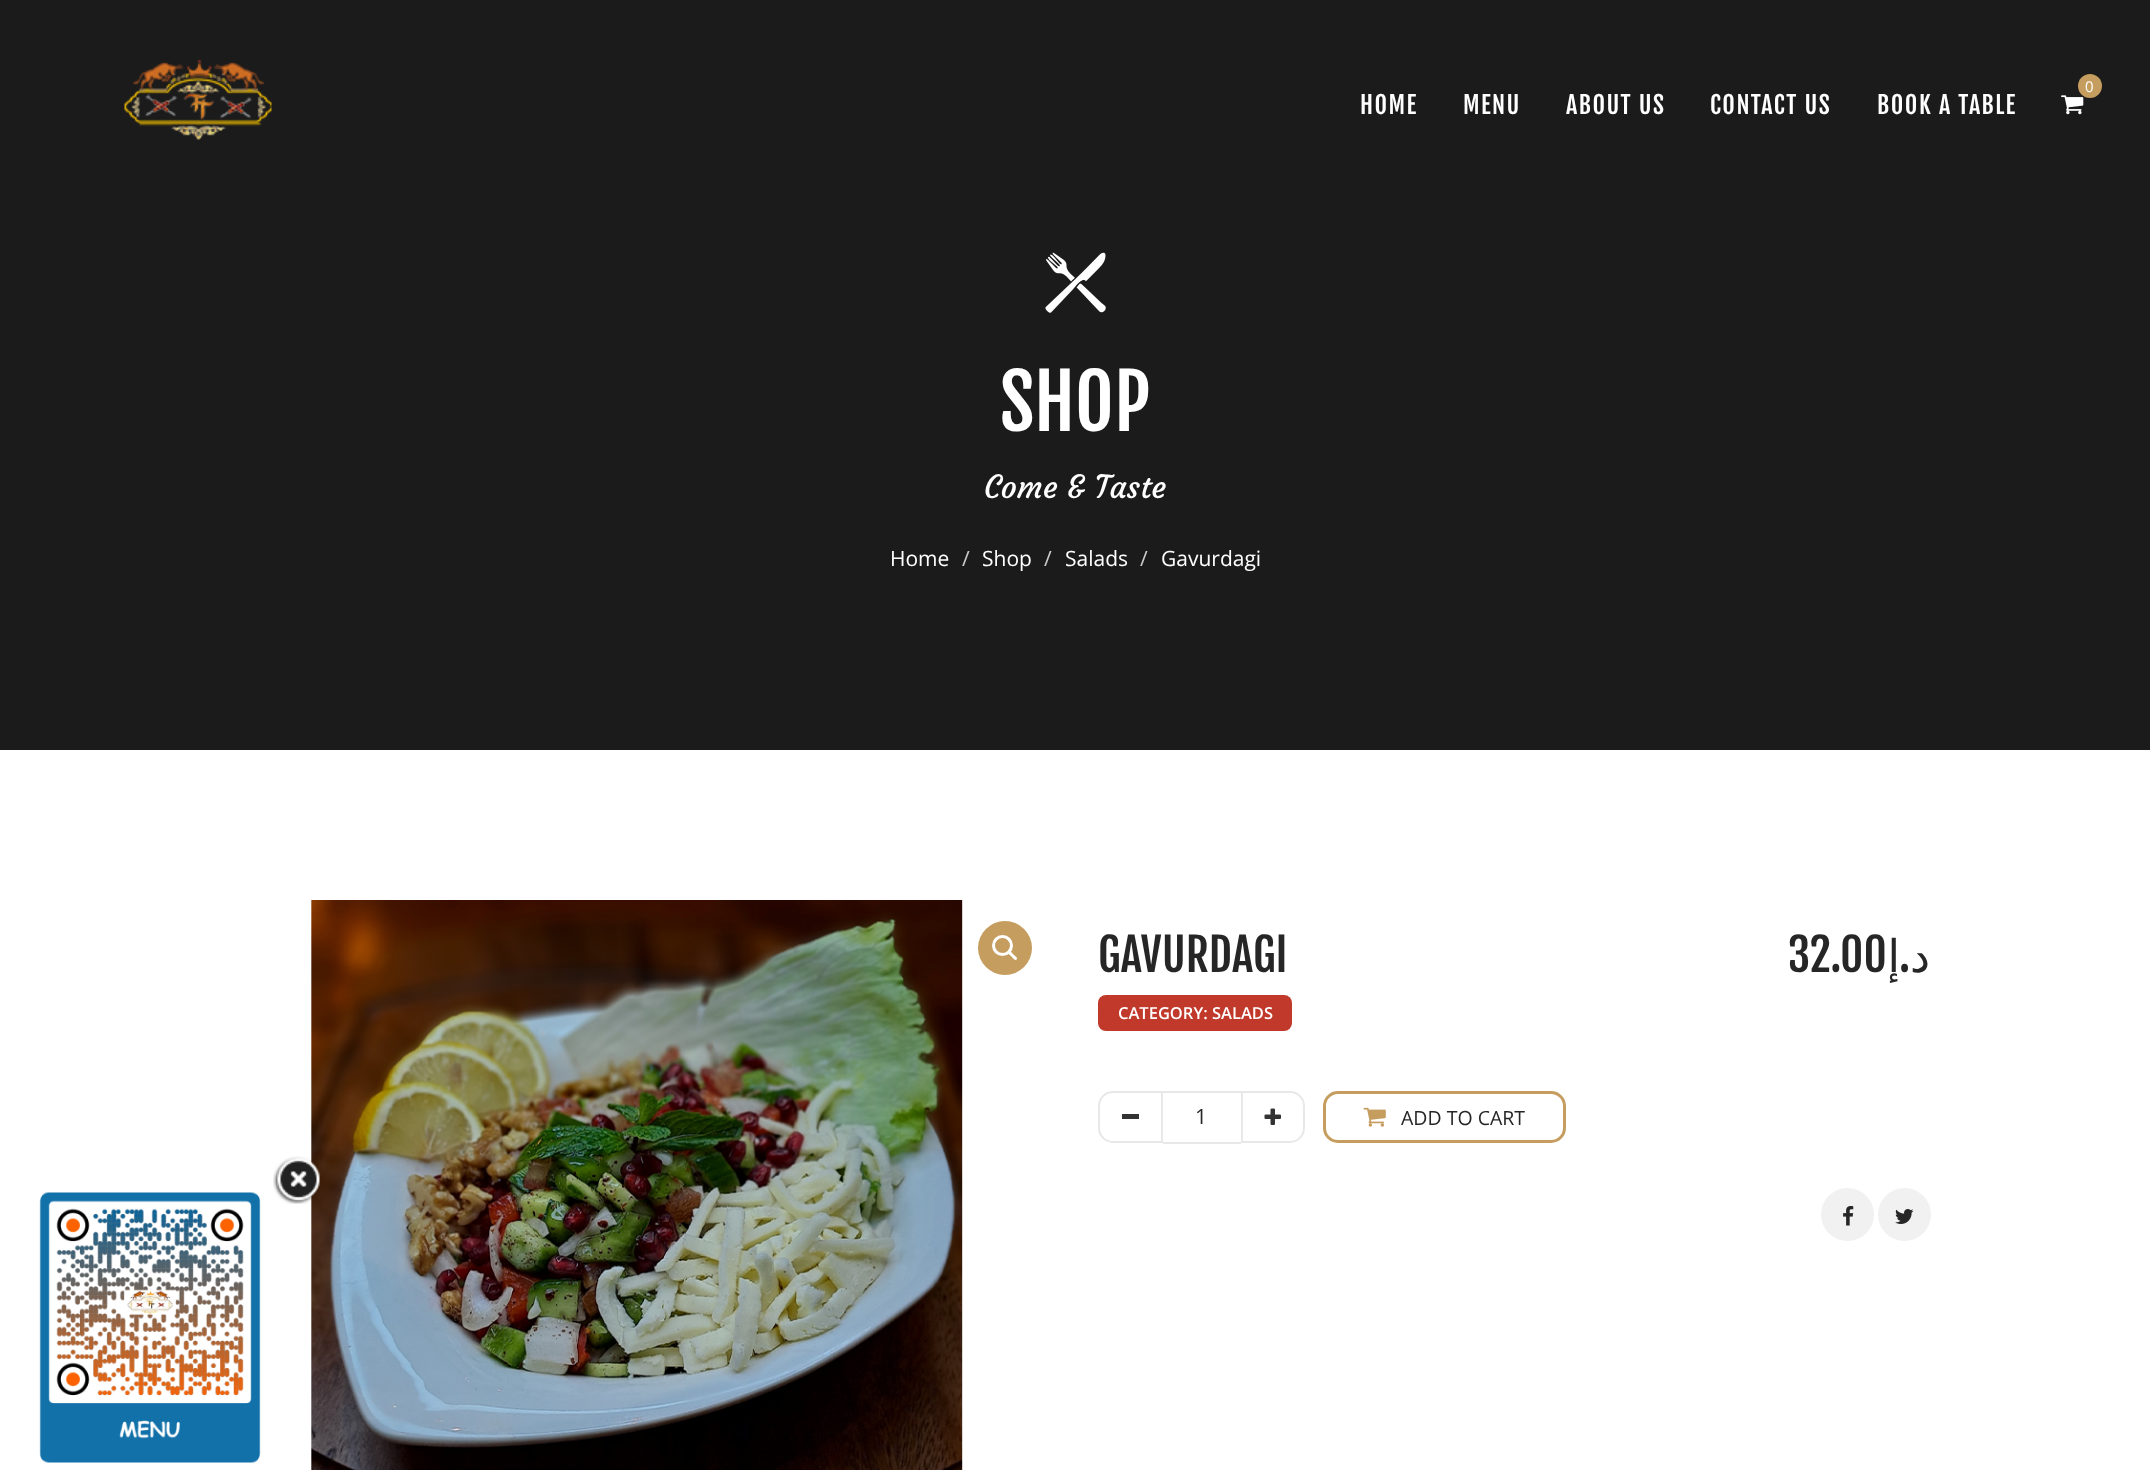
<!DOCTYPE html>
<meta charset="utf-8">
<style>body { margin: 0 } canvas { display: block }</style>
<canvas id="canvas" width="2150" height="1477"></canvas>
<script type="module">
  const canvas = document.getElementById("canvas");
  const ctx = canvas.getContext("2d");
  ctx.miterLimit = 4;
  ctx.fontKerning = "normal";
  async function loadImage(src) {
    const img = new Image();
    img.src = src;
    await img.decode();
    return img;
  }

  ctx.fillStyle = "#ffffff";
  ctx.fillRect(0, 0, 2150, 1477);
  ctx.fillStyle = "#1b1b1b";
  ctx.fillRect(0, 0, 2150, 750);
  ctx.drawImage(await loadImage("img1.png"), 124, 60, 148, 80);
  ctx.drawImage(await loadImage("img2.png"), 2061, 95, 23, 20);
  ctx.fillStyle = "#c59d5f";
  ctx.beginPath();
  ctx.arc(2090, 86, 12, 0, Math.PI * 2);
  ctx.fill();
  ctx.font = "15px Open Sans";
  ctx.fillStyle = "#ffffff";
  ctx.fillText("0", 2085, 92);
  ctx.letterSpacing = "1.5px";
  ctx.font = "24px Fjalla One";
  ctx.fillText("HOME", 1360, 114);
  ctx.fillText("MENU", 1463, 114);
  ctx.fillText("ABOUT US", 1566, 114);
  ctx.fillText("CONTACT US", 1710, 114);
  ctx.fillText("BOOK A TABLE", 1877, 114);
  ctx.drawImage(await loadImage("img3.png"), 1045, 252, 61, 61);
  ctx.letterSpacing = "0px";
  ctx.font = "75px Fjalla One";
  ctx.fillText("SHOP", 1000, 431);
  ctx.font = "31.5px Courgette";
  ctx.fillText("Come & Taste", 984, 498);
  ctx.font = "21px Open Sans";
  ctx.fillText("Home", 890, 566);
  ctx.fillStyle = "#cccccc";
  ctx.fillText("/", 962, 566);
  ctx.fillStyle = "#ffffff";
  ctx.fillText("Shop", 982, 566);
  ctx.fillStyle = "#cccccc";
  ctx.fillText("/", 1044, 566);
  ctx.fillStyle = "#ffffff";
  ctx.fillText("Salads", 1065, 566);
  ctx.fillStyle = "#cccccc";
  ctx.fillText("/", 1140, 566);
  ctx.fillStyle = "#ffffff";
  ctx.fillText("Gavurdagi", 1161, 566);
  ctx.drawImage(await loadImage("img4.png"), 311, 900, 652, 570);
  ctx.fillStyle = "#c59d5f";
  ctx.beginPath();
  ctx.arc(1005, 948, 27, 0, Math.PI * 2);
  ctx.fill();
  ctx.beginPath();
  ctx.arc(1002.5, 945.5, 9, 0, Math.PI * 2);
  ctx.strokeStyle = "#ffffff";
  ctx.lineWidth = 3;
  ctx.stroke();
  ctx.fillStyle = "#ffffff";
  ctx.beginPath();
  ctx.moveTo(1008.5, 951.5);
  ctx.bezierCurveTo(1010, 949.5, 1012.5, 953.5, 1013.5, 954.5);
  ctx.bezierCurveTo(1014.5, 955.5, 1018.5, 958, 1016.5, 959.5);
  ctx.bezierCurveTo(1015, 961.5, 1012.5, 957.5, 1011.5, 956.5);
  ctx.bezierCurveTo(1010.5, 955.5, 1006.5, 953, 1008.5, 951.5);
  ctx.closePath();
  ctx.fill();
  ctx.font = "45px Fjalla One";
  ctx.fillStyle = "#262626";
  ctx.fillText("GAVURDAGI", 1098, 972);
  ctx.fillText("32.00", 1788, 972);
  ctx.direction = "rtl";
  ctx.font = "45px DejaVu Sans";
  ctx.fillText("إ", 1900, 972);
  ctx.font = "45px Fjalla One";
  ctx.fillText(".", 1910, 972);
  ctx.font = "45px DejaVu Sans";
  ctx.fillText("د", 1930, 972);
  ctx.fillStyle = "#c0392b";
  ctx.beginPath();
  ctx.roundRect(1098, 995, 194, 36, 8);
  ctx.fill();
  ctx.direction = "ltr";
  ctx.font = "600 16.5px Open Sans";
  ctx.fillStyle = "#ffffff";
  ctx.fillText("CATEGORY: SALADS", 1118, 1019);
  ctx.beginPath();
  ctx.roundRect(1099, 1092, 63, 50, [14, 0, 0, 14]);
  ctx.strokeStyle = "#e8e8e8";
  ctx.lineWidth = 2;
  ctx.stroke();
  ctx.fillStyle = "#333333";
  ctx.fillRect(1122, 1114, 17, 5);
  ctx.fillStyle = "#e8e8e8";
  ctx.fillRect(1163, 1091, 78, 2);
  ctx.fillRect(1163, 1142, 78, 2);
  ctx.font = "21px Open Sans";
  ctx.fillStyle = "#262626";
  ctx.fillText("1", 1195, 1124);
  ctx.beginPath();
  ctx.roundRect(1242, 1092, 62, 50, [0, 14, 14, 0]);
  ctx.stroke();
  ctx.drawImage(await loadImage("img5.png"), 1264, 1108, 17, 17);
  ctx.beginPath();
  ctx.roundRect(1324.5, 1092.5, 240, 49, 13.5);
  ctx.strokeStyle = "#c59d5f";
  ctx.lineWidth = 3;
  ctx.stroke();
  ctx.drawImage(await loadImage("img6.png"), 1363, 1107, 23, 20);
  ctx.font = "19.5px Open Sans";
  ctx.fillText("ADD TO CART", 1401, 1125);
  ctx.fillStyle = "#f1f1f1";
  ctx.beginPath();
  ctx.arc(1847.5, 1214.5, 26.5, 0, Math.PI * 2);
  ctx.fill();
  ctx.drawImage(await loadImage("img7.png"), 1843, 1206, 11, 20);
  ctx.beginPath();
  ctx.arc(1904.5, 1214.5, 26.5, 0, Math.PI * 2);
  ctx.fill();
  ctx.drawImage(await loadImage("img8.png"), 1895, 1209, 19, 15);
  ctx.drawImage(await loadImage("img9.png"), 273, 1156, 47, 48);
  ctx.drawImage(await loadImage("img10.png"), 39, 1192, 222, 271);
</script>
